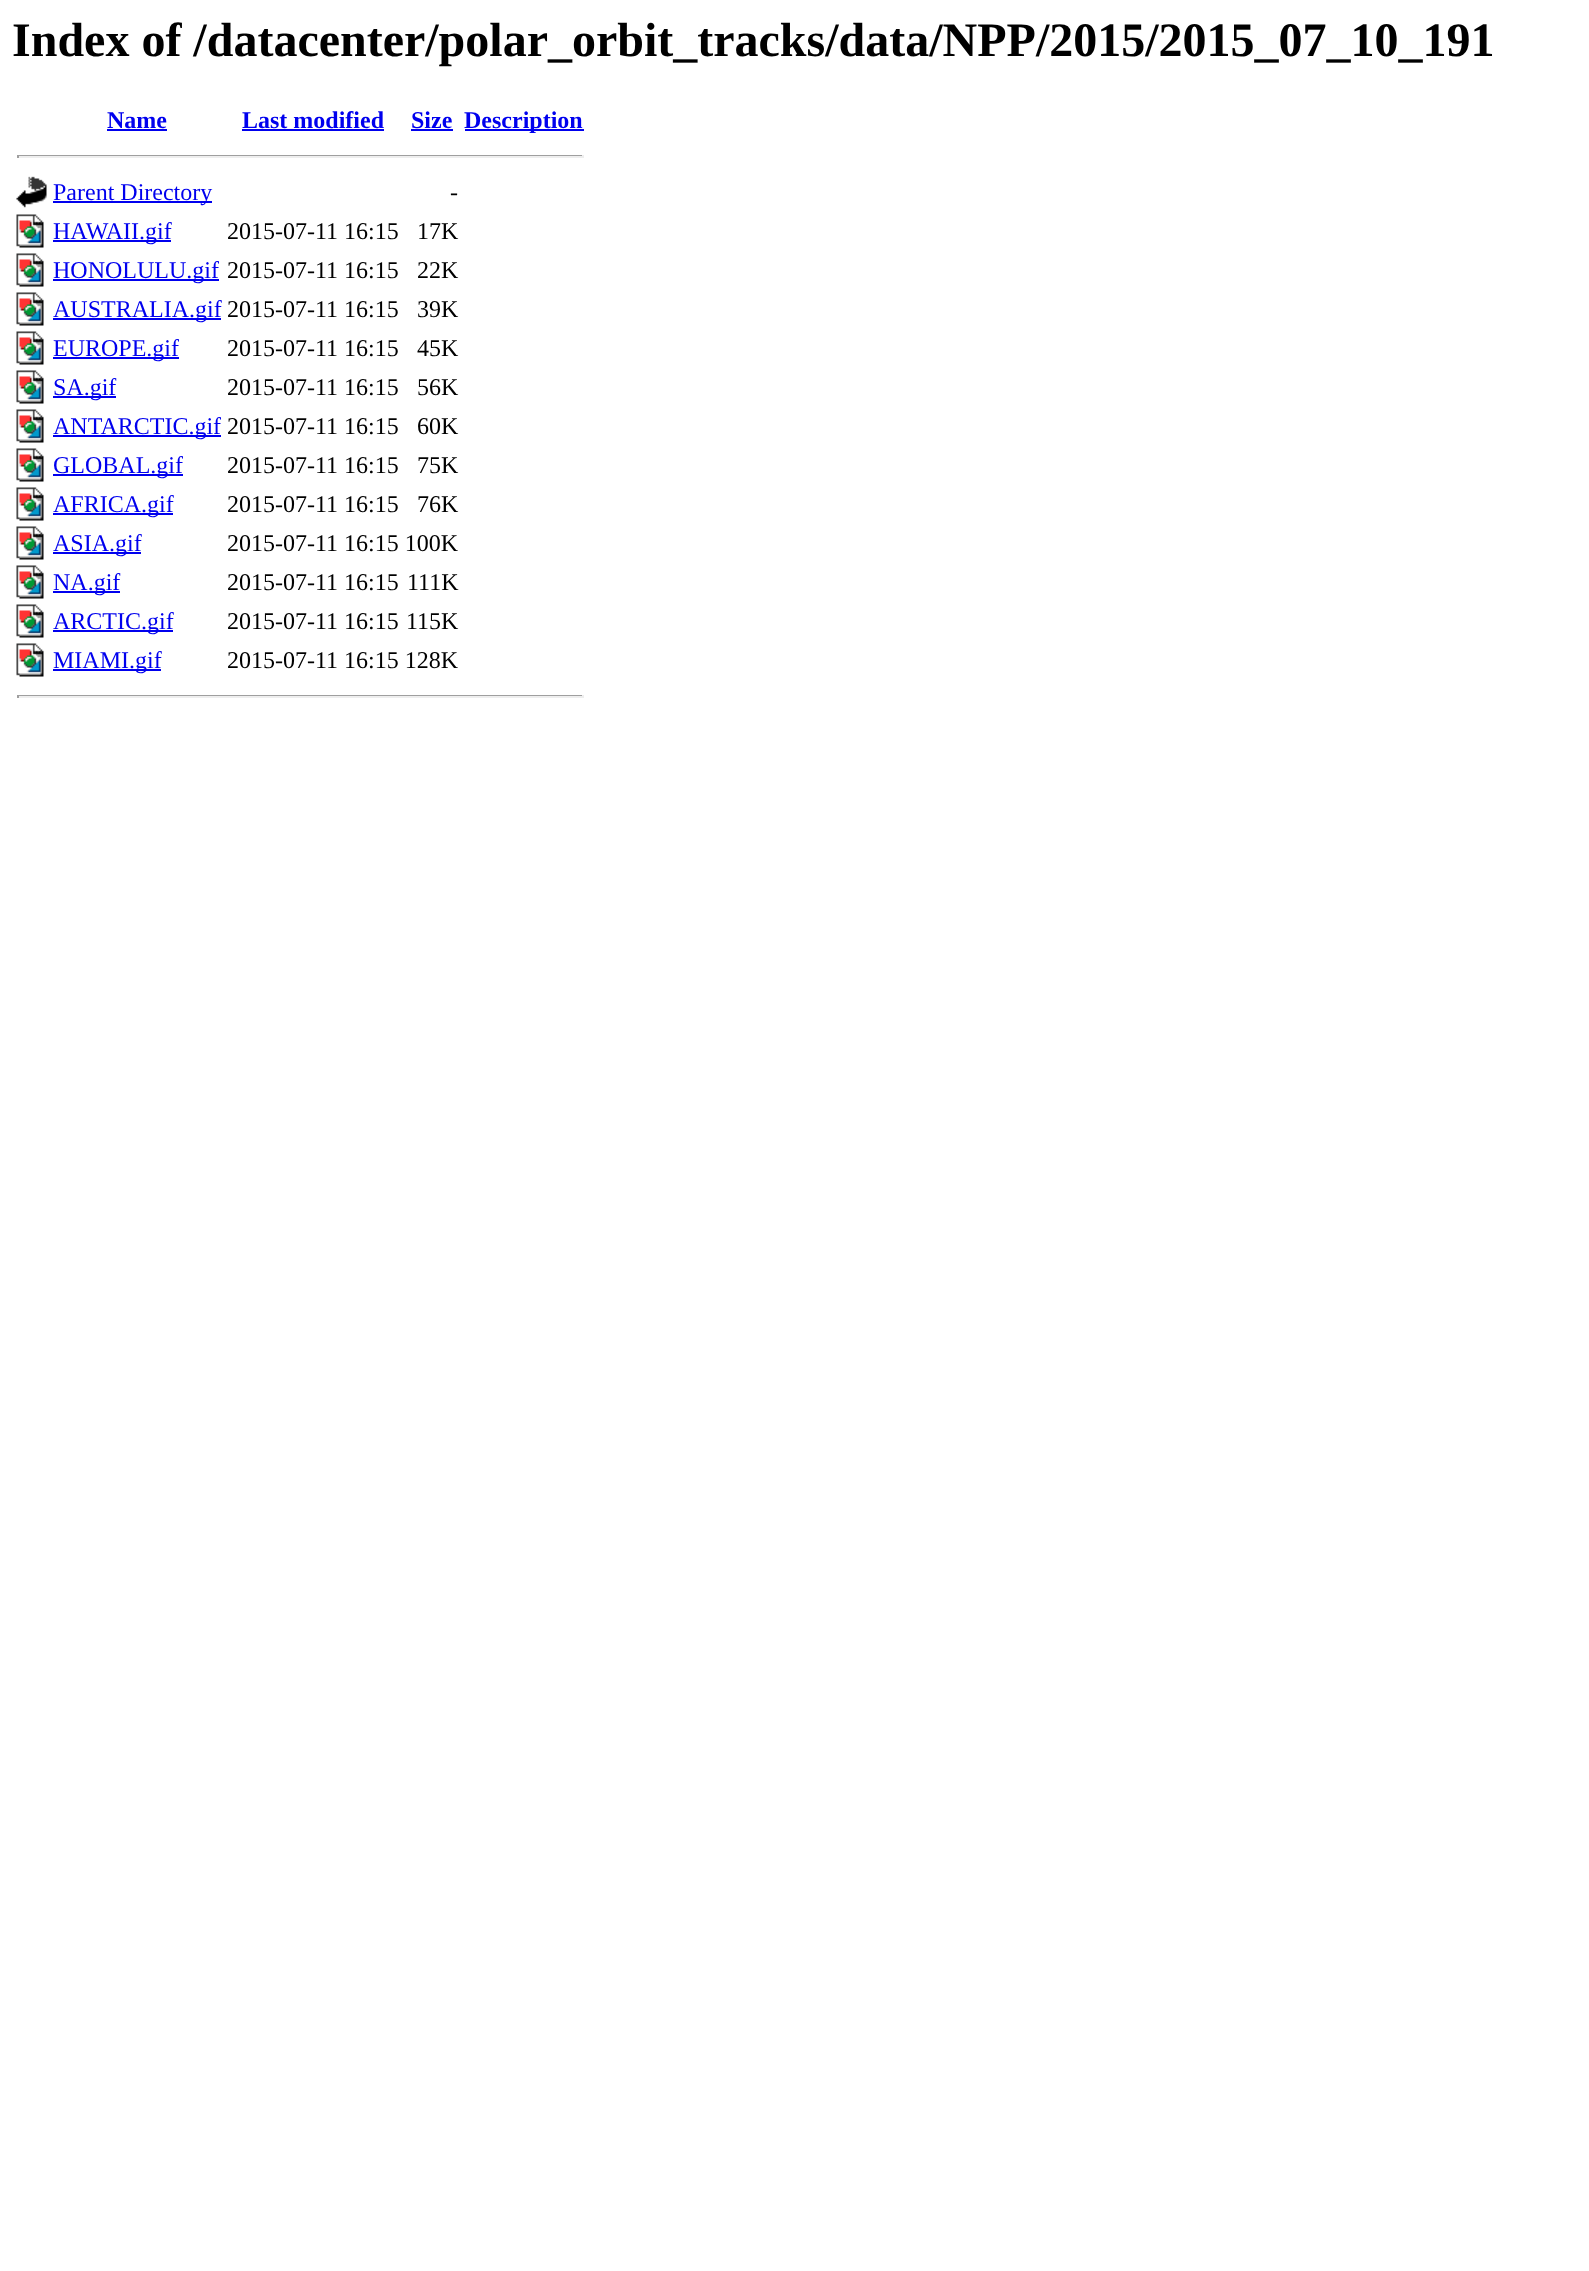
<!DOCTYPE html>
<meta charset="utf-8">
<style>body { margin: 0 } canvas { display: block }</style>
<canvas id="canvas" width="1589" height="2271"></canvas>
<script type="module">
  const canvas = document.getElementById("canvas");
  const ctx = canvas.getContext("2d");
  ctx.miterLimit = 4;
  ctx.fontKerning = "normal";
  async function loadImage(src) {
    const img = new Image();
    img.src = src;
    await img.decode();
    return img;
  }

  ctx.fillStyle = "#ffffff";
  ctx.fillRect(0, 0, 1589, 2271);
  ctx.font = "bold 48px Liberation Serif";
  ctx.fillStyle = "#000000";
  ctx.fillText("Index of /datacenter/polar_orbit_tracks/data/NPP/2015/2015_07_10_191", 12, 56);
  ctx.font = "bold 24px Liberation Serif";
  ctx.fillStyle = "#0000ee";
  ctx.fillText("Name", 107, 128);
  ctx.fillRect(107, 129, 60, 2);
  ctx.fillText("Last modified", 242, 128);
  ctx.fillRect(242, 129, 142, 2);
  ctx.fillText("Size", 411, 128);
  ctx.fillRect(411, 129, 42, 2);
  ctx.fillRect(465, 129, 119, 2);
  ctx.fillText("Description", 464, 128);
  ctx.fillStyle = "#9f9f9f";
  ctx.fillRect(17, 155, 567, 1);
  ctx.fillStyle = "#eeeeee";
  ctx.fillRect(582, 155, 2, 3);
  ctx.fillRect(17, 156, 567, 2);
  ctx.fillStyle = "#9f9f9f";
  ctx.fillRect(17, 155, 2, 3);
  ctx.drawImage(await loadImage("img1.png"), 16, 176, 31, 32);
  ctx.fillStyle = "#0000ee";
  ctx.fillRect(53, 201, 159, 2);
  ctx.font = "24px Liberation Serif";
  ctx.fillText("Parent Directory", 53, 200);
  ctx.fillStyle = "#000000";
  ctx.fillText("-", 450, 200);
  ctx.drawImage(await loadImage("img2.png"), 16, 214, 28, 34);
  ctx.fillStyle = "#0000ee";
  ctx.fillRect(53, 240, 118, 2);
  ctx.fillText("HAWAII.gif", 53, 239);
  ctx.fillStyle = "#000000";
  ctx.fillText("2015-07-11 16:15", 227, 239);
  ctx.fillText("17K", 417, 239);
  ctx.drawImage(await loadImage("img2.png"), 16, 253, 28, 34);
  ctx.fillStyle = "#0000ee";
  ctx.fillRect(53, 279, 166, 2);
  ctx.fillText("HONOLULU.gif", 53, 278);
  ctx.fillStyle = "#000000";
  ctx.fillText("2015-07-11 16:15", 227, 278);
  ctx.fillText("22K", 417, 278);
  ctx.drawImage(await loadImage("img2.png"), 16, 292, 28, 34);
  ctx.fillStyle = "#0000ee";
  ctx.fillRect(53, 318, 168, 2);
  ctx.fillText("AUSTRALIA.gif", 53, 317);
  ctx.fillStyle = "#000000";
  ctx.fillText("2015-07-11 16:15", 227, 317);
  ctx.fillText("39K", 417, 317);
  ctx.drawImage(await loadImage("img2.png"), 16, 331, 28, 34);
  ctx.fillStyle = "#0000ee";
  ctx.fillRect(53, 357, 126, 2);
  ctx.fillText("EUROPE.gif", 53, 356);
  ctx.fillStyle = "#000000";
  ctx.fillText("2015-07-11 16:15", 227, 356);
  ctx.fillText("45K", 417, 356);
  ctx.drawImage(await loadImage("img2.png"), 16, 370, 28, 34);
  ctx.fillStyle = "#0000ee";
  ctx.fillRect(53, 396, 63, 2);
  ctx.fillText("SA.gif", 53, 395);
  ctx.fillStyle = "#000000";
  ctx.fillText("2015-07-11 16:15", 227, 395);
  ctx.fillText("56K", 417, 395);
  ctx.drawImage(await loadImage("img2.png"), 16, 409, 28, 34);
  ctx.fillStyle = "#0000ee";
  ctx.fillRect(53, 435, 168, 2);
  ctx.fillText("ANTARCTIC.gif", 53, 434);
  ctx.fillStyle = "#000000";
  ctx.fillText("2015-07-11 16:15", 227, 434);
  ctx.fillText("60K", 417, 434);
  ctx.drawImage(await loadImage("img2.png"), 16, 448, 28, 34);
  ctx.fillStyle = "#0000ee";
  ctx.fillRect(53, 474, 130, 2);
  ctx.fillText("GLOBAL.gif", 53, 473);
  ctx.fillStyle = "#000000";
  ctx.fillText("2015-07-11 16:15", 227, 473);
  ctx.fillText("75K", 417, 473);
  ctx.drawImage(await loadImage("img2.png"), 16, 487, 28, 34);
  ctx.fillStyle = "#0000ee";
  ctx.fillRect(53, 513, 120, 2);
  ctx.fillText("AFRICA.gif", 53, 512);
  ctx.fillStyle = "#000000";
  ctx.fillText("2015-07-11 16:15", 227, 512);
  ctx.fillText("76K", 417, 512);
  ctx.drawImage(await loadImage("img2.png"), 16, 526, 28, 34);
  ctx.fillStyle = "#0000ee";
  ctx.fillRect(53, 552, 88, 2);
  ctx.fillText("ASIA.gif", 53, 551);
  ctx.fillStyle = "#000000";
  ctx.fillText("2015-07-11 16:15 100K", 227, 551);
  ctx.drawImage(await loadImage("img2.png"), 16, 565, 28, 34);
  ctx.fillStyle = "#0000ee";
  ctx.fillRect(53, 591, 67, 2);
  ctx.fillText("NA.gif", 53, 590);
  ctx.fillStyle = "#000000";
  ctx.fillText("2015-07-11 16:15", 227, 590);
  ctx.fillText("111K", 407, 590);
  ctx.drawImage(await loadImage("img2.png"), 16, 604, 28, 34);
  ctx.fillStyle = "#0000ee";
  ctx.fillRect(53, 630, 120, 2);
  ctx.fillText("ARCTIC.gif", 53, 629);
  ctx.fillStyle = "#000000";
  ctx.fillText("2015-07-11 16:15", 227, 629);
  ctx.fillText("115K", 406, 629);
  ctx.drawImage(await loadImage("img2.png"), 16, 643, 28, 34);
  ctx.fillStyle = "#0000ee";
  ctx.fillRect(53, 669, 108, 2);
  ctx.fillText("MIAMI.gif", 53, 668);
  ctx.fillStyle = "#000000";
  ctx.fillText("2015-07-11 16:15 128K", 227, 668);
  ctx.fillStyle = "#9f9f9f";
  ctx.fillRect(17, 695, 567, 1);
  ctx.fillStyle = "#eeeeee";
  ctx.fillRect(582, 695, 2, 3);
  ctx.fillRect(17, 696, 567, 2);
  ctx.fillStyle = "#9f9f9f";
  ctx.fillRect(17, 695, 2, 3);
</script>
